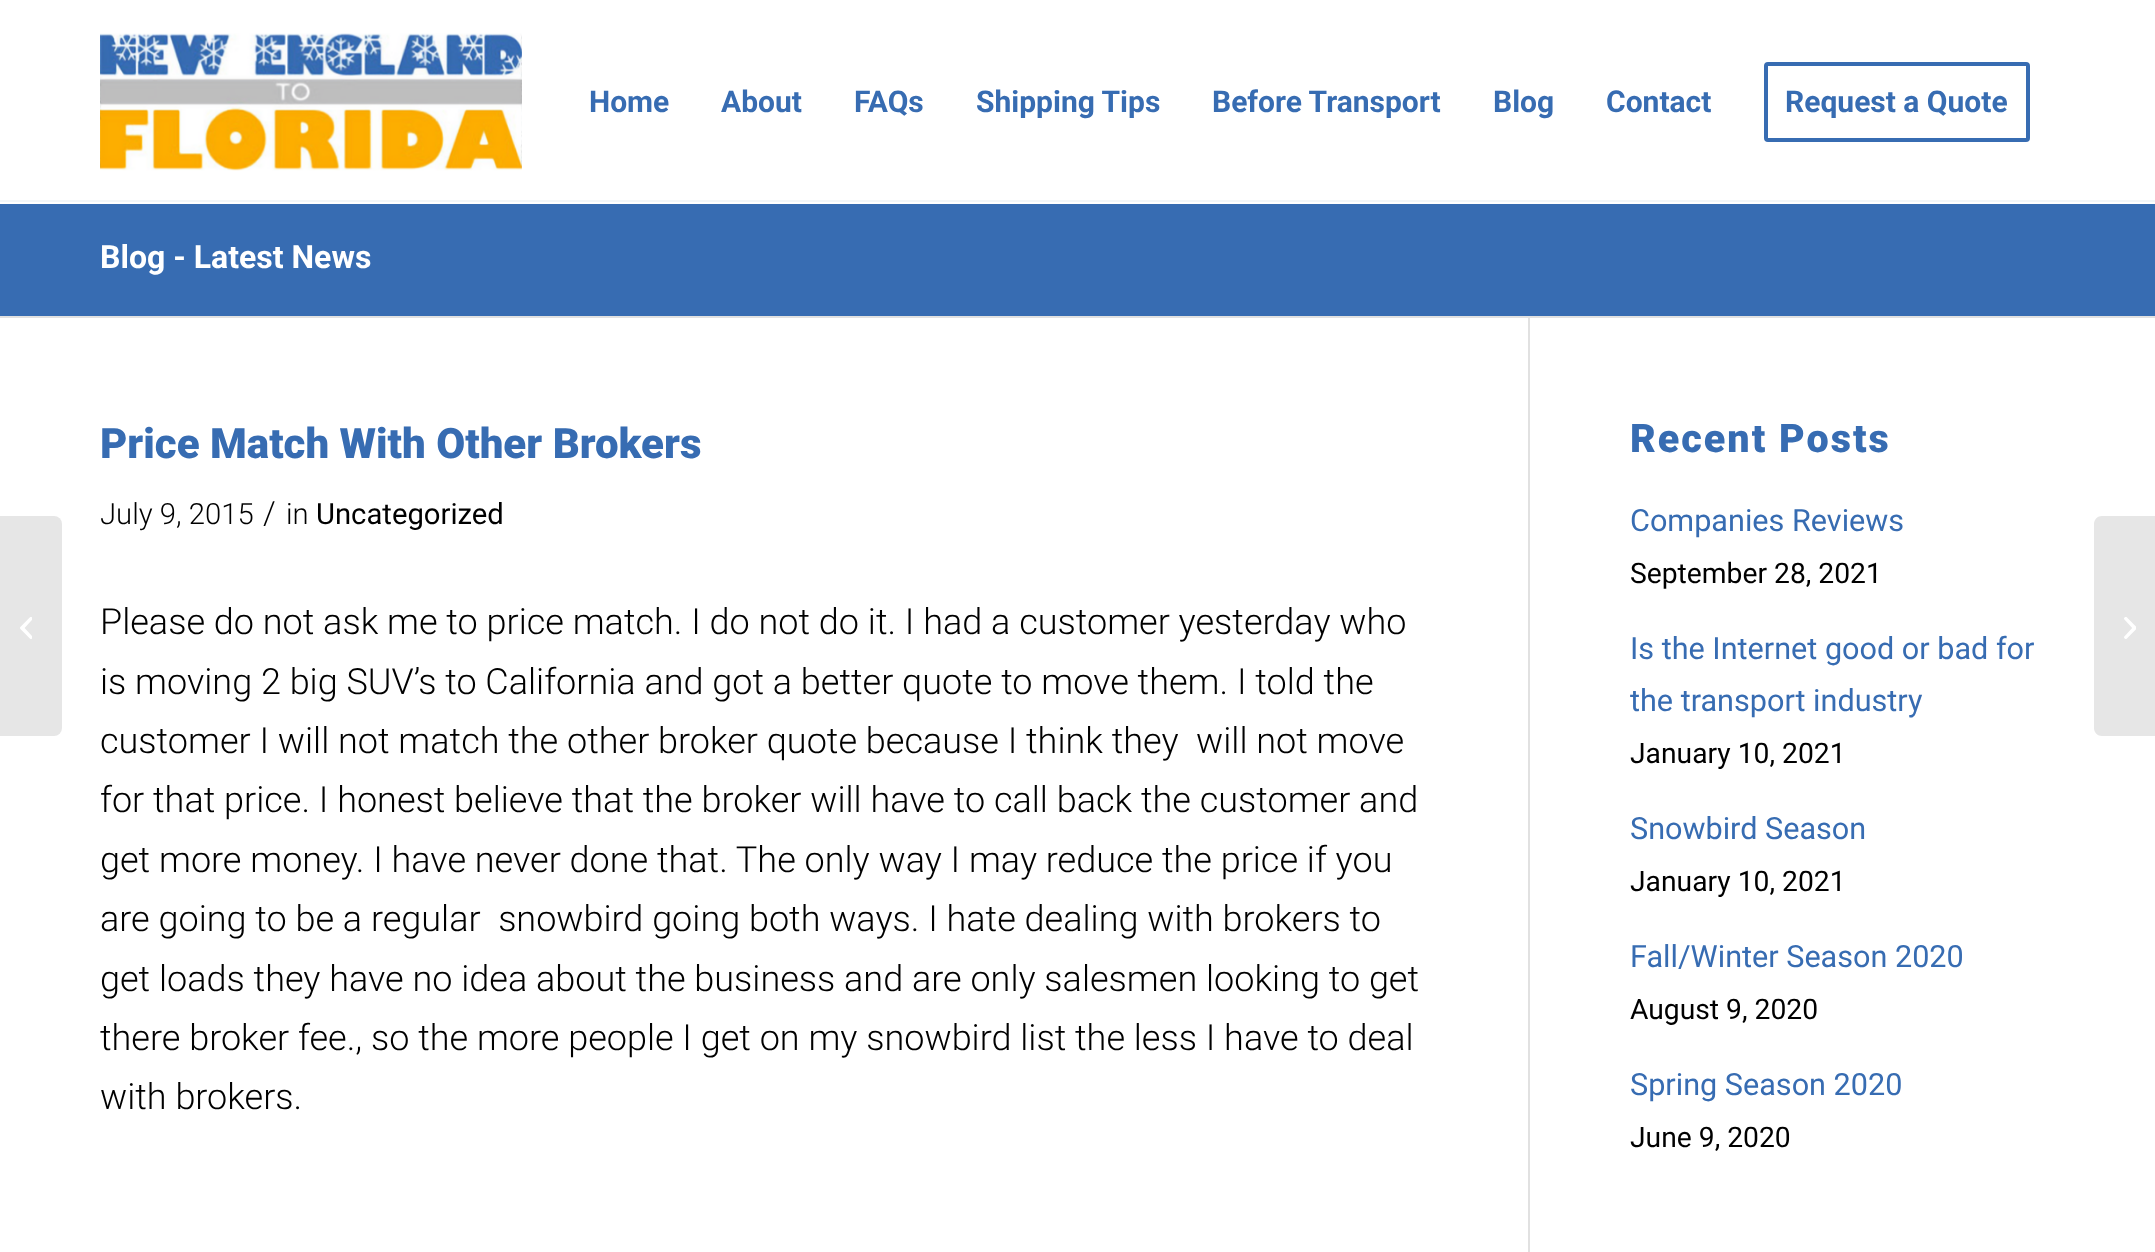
<!DOCTYPE html>
<meta charset="utf-8">
<style>body { margin: 0 } canvas { display: block }</style>
<canvas id="canvas" width="2155" height="1252"></canvas>
<script type="module">
  const canvas = document.getElementById("canvas");
  const ctx = canvas.getContext("2d");
  ctx.miterLimit = 4;
  ctx.fontKerning = "normal";
  async function loadImage(src) {
    const img = new Image();
    img.src = src;
    await img.decode();
    return img;
  }

  ctx.fillStyle = "#ffffff";
  ctx.fillRect(0, 0, 2155, 1252);
  ctx.drawImage(await loadImage("img1.png"), 100, 33, 422, 138);
  ctx.font = "bold 30px Roboto";
  ctx.fillStyle = "#376cb2";
  ctx.fillText("Home", 589, 112);
  ctx.fillText("About", 721, 112);
  ctx.fillText("FAQs", 854, 112);
  ctx.fillText("Shipping Tips", 976, 112);
  ctx.fillText("Before Transport", 1212, 112);
  ctx.fillText("Blog", 1493, 112);
  ctx.fillText("Contact", 1606, 112);
  ctx.beginPath();
  ctx.roundRect(1766, 64, 262, 76, 2);
  ctx.strokeStyle = "#376cb2";
  ctx.lineWidth = 4;
  ctx.stroke();
  ctx.fillText("Request a Quote", 1785, 112);
  ctx.fillStyle = "#e6e6e6";
  ctx.beginPath();
  ctx.roundRect(0, 516, 62, 220, [0, 8, 8, 0]);
  ctx.fill();
  ctx.drawImage(await loadImage("img2.png"), 20, 617, 12, 22);
  ctx.fillStyle = "#376cb2";
  ctx.fillRect(0, 204, 2155, 112);
  ctx.fillStyle = "#f3f6f8";
  ctx.fillRect(0, 200, 2155, 2);
  ctx.font = "bold 32px Roboto";
  ctx.fillStyle = "#ffffff";
  ctx.fillText("Blog - Latest News", 100, 268);
  ctx.fillStyle = "#e1e1e1";
  ctx.fillRect(0, 316, 2155, 2);
  ctx.fillRect(1528, 318, 2, 934);
  ctx.font = "900 42px Roboto";
  ctx.fillStyle = "#376cb2";
  ctx.fillText("Price Match With Other Brokers", 100, 458);
  ctx.font = "300 29.25px Roboto";
  ctx.fillStyle = "#000000";
  ctx.fillText("July 9, 2015", 100, 524);
  ctx.font = "300 32px Roboto";
  ctx.fillText("/", 263, 524);
  ctx.font = "300 29.25px Roboto";
  ctx.fillText("in", 286, 524);
  ctx.font = "29.25px Roboto";
  ctx.fillText("Uncategorized", 316, 524);
  ctx.font = "300 36px Roboto";
  ctx.fillText("Please do not ask me to price match. I do not do it. I had a customer yesterday who", 100, 634);
  ctx.fillText("is moving 2 big SUV’s to California and got a better quote to move them. I told the", 100, 694);
  ctx.fillText("customer I will not match the other broker quote because I think they  will not move", 100, 753);
  ctx.fillText("for that price. I honest believe that the broker will have to call back the customer and", 100, 812);
  ctx.fillText("get more money. I have never done that. The only way I may reduce the price if you", 100, 872);
  ctx.fillText("are going to be a regular  snowbird going both ways. I hate dealing with brokers to", 100, 931);
  ctx.fillText("get loads they have no idea about the business and are only salesmen looking to get", 100, 991);
  ctx.fillText("there broker fee., so the more people I get on my snowbird list the less I have to deal", 100, 1050);
  ctx.fillText("with brokers.", 100, 1109);
  ctx.letterSpacing = "2px";
  ctx.font = "900 39.5px Roboto";
  ctx.fillStyle = "#376cb2";
  ctx.fillText("Recent Posts", 1630, 452);
  ctx.letterSpacing = "0px";
  ctx.font = "30.6px Roboto";
  ctx.fillText("Companies Reviews", 1630, 531);
  ctx.font = "28.25px Roboto";
  ctx.fillStyle = "#000000";
  ctx.fillText("September 28, 2021", 1630, 583);
  ctx.font = "30.6px Roboto";
  ctx.fillStyle = "#376cb2";
  ctx.fillText("Is the Internet good or bad for", 1630, 659);
  ctx.fillText("the transport industry", 1630, 711);
  ctx.font = "28.25px Roboto";
  ctx.fillStyle = "#000000";
  ctx.fillText("January 10, 2021", 1630, 763);
  ctx.font = "30.6px Roboto";
  ctx.fillStyle = "#376cb2";
  ctx.fillText("Snowbird Season", 1630, 839);
  ctx.font = "28.25px Roboto";
  ctx.fillStyle = "#000000";
  ctx.fillText("January 10, 2021", 1630, 891);
  ctx.font = "30.6px Roboto";
  ctx.fillStyle = "#376cb2";
  ctx.fillText("Fall/Winter Season 2020", 1630, 967);
  ctx.font = "28.25px Roboto";
  ctx.fillStyle = "#000000";
  ctx.fillText("August 9, 2020", 1630, 1019);
  ctx.font = "30.6px Roboto";
  ctx.fillStyle = "#376cb2";
  ctx.fillText("Spring Season 2020", 1630, 1095);
  ctx.font = "28.25px Roboto";
  ctx.fillStyle = "#000000";
  ctx.fillText("June 9, 2020", 1630, 1147);
  ctx.fillStyle = "#e6e6e6";
  ctx.beginPath();
  ctx.moveTo(2102, 516);
  ctx.lineTo(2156, 516);
  ctx.lineTo(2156, 736);
  ctx.lineTo(2102, 736);
  ctx.bezierCurveTo(2097.5, 736, 2094, 732.5, 2094, 728);
  ctx.lineTo(2094, 524);
  ctx.bezierCurveTo(2094, 519.5, 2097.5, 516, 2102, 516);
  ctx.closePath();
  ctx.fill();
  ctx.drawImage(await loadImage("img3.png"), 2124, 617, 12, 22);
</script>
